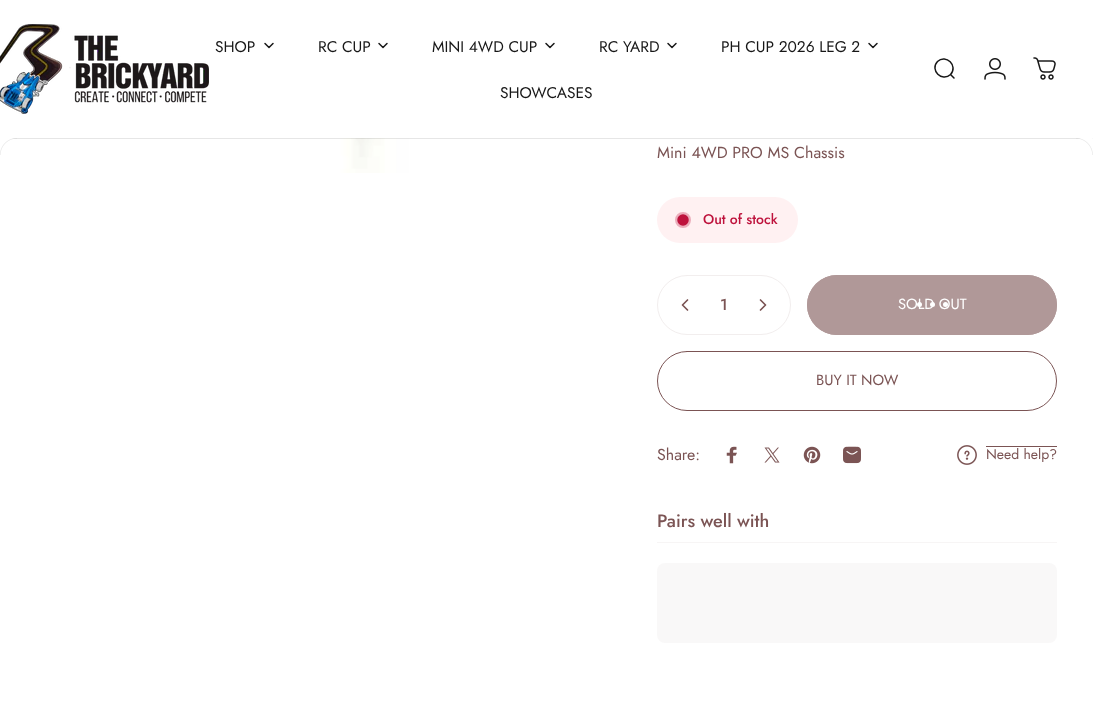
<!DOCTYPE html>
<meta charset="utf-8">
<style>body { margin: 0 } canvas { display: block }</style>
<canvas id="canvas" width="1093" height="727"></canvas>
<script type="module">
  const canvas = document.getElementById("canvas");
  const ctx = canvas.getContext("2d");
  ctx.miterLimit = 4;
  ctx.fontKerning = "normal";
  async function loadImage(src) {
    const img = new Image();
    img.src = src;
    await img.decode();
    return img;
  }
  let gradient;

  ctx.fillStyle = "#ffffff";
  ctx.fillRect(0, 0, 1093, 727);
  ctx.drawImage(await loadImage("img1.png"), 0, 24, 209, 90);
  ctx.font = "15.5px Jost";
  ctx.fillStyle = "#171717";
  ctx.fillText("SHOP", 215, 52);
  ctx.beginPath();
  ctx.moveTo(265, 43.5);
  ctx.lineTo(269, 47.5);
  ctx.lineTo(273, 43.5);
  ctx.strokeStyle = "#171717";
  ctx.lineWidth = 1.5;
  ctx.lineCap = "round";
  ctx.lineJoin = "round";
  ctx.stroke();
  ctx.fillText("RC CUP", 318, 52);
  ctx.beginPath();
  ctx.moveTo(379, 43.5);
  ctx.lineTo(383, 47.5);
  ctx.lineTo(387, 43.5);
  ctx.stroke();
  ctx.fillText("MINI 4WD CUP", 432, 52);
  ctx.beginPath();
  ctx.moveTo(546, 43.5);
  ctx.lineTo(550, 47.5);
  ctx.lineTo(554, 43.5);
  ctx.stroke();
  ctx.fillText("RC YARD", 599, 52);
  ctx.beginPath();
  ctx.moveTo(668, 43.5);
  ctx.lineTo(672, 47.5);
  ctx.lineTo(676, 43.5);
  ctx.stroke();
  ctx.fillText("PH CUP 2026 LEG 2", 721, 52);
  ctx.beginPath();
  ctx.moveTo(869, 43.5);
  ctx.lineTo(873, 47.5);
  ctx.lineTo(877, 43.5);
  ctx.stroke();
  ctx.fillText("SHOWCASES", 500, 98);
  ctx.beginPath();
  ctx.moveTo(954, 78);
  ctx.lineTo(950.5, 74.5);
  ctx.moveTo(950.5, 74.5);
  ctx.bezierCurveTo(958.5, 66, 946, 53.5, 937.5, 61.5);
  ctx.bezierCurveTo(929.5, 70, 942, 82.5, 950.5, 74.5);
  ctx.closePath();
  ctx.lineJoin = "miter";
  ctx.stroke();
  ctx.drawImage(await loadImage("img2.png"), 984, 58, 22, 22);
  ctx.drawImage(await loadImage("img3.png"), 1033, 57, 23, 23);
  ctx.drawImage(await loadImage("img6.png"), 36, 138, 581, 35);
  ctx.fillStyle = "rgba(23, 23, 23, 0.11)";
  ctx.fillRect(12, 138, 1081, 1);
  ctx.drawImage(await loadImage("img4.png"), 0, 138, 17, 17);
  ctx.drawImage(await loadImage("img5.png"), 1076, 138, 17, 17);
  ctx.font = "16px Jost";
  ctx.fillStyle = "#7b5454";
  ctx.fillText("Mini 4WD PRO MS Chassis", 657, 158);
  ctx.fillStyle = "#fff1f2";
  ctx.beginPath();
  ctx.roundRect(657, 197, 141, 46, 23);
  ctx.fill();
  ctx.fillStyle = "#be123c";
  ctx.beginPath();
  ctx.arc(683, 220, 5, 0, Math.PI * 2);
  ctx.fill();
  ctx.strokeStyle = "#be123c";
  ctx.stroke();
  ctx.beginPath();
  ctx.arc(683, 220, 6.5, 0, Math.PI * 2);
  ctx.strokeStyle = "rgba(190, 18, 60, 0.3)";
  ctx.lineWidth = 3;
  ctx.stroke();
  ctx.font = "500 14px Jost";
  ctx.fillText("Out of stock", 703, 224);
  ctx.beginPath();
  ctx.roundRect(657.5, 275.5, 133, 59, 29.5);
  ctx.strokeStyle = "#f2eeee";
  ctx.lineWidth = 1;
  ctx.stroke();
  ctx.beginPath();
  ctx.moveTo(687.5, 300);
  ctx.lineTo(682.5, 305);
  ctx.lineTo(687.5, 310);
  ctx.strokeStyle = "#7b5454";
  ctx.lineWidth = 1.7;
  ctx.lineJoin = "round";
  ctx.stroke();
  ctx.font = "500 16px Jost";
  ctx.fillStyle = "#7b5454";
  ctx.fillText("1", 720, 310);
  ctx.beginPath();
  ctx.moveTo(760.5, 300);
  ctx.lineTo(765.5, 305);
  ctx.lineTo(760.5, 310);
  ctx.stroke();
  ctx.fillStyle = "#b09898";
  ctx.beginPath();
  ctx.roundRect(807, 275, 250, 60, 30);
  ctx.fill();
  ctx.fillStyle = "#ffffff";
  ctx.beginPath();
  ctx.arc(919.5, 304.5, 2.5, 0, Math.PI * 2);
  ctx.fill();
  ctx.beginPath();
  ctx.arc(932.5, 304.5, 2.5, 0, Math.PI * 2);
  ctx.fill();
  ctx.beginPath();
  ctx.arc(945.5, 304.5, 2.5, 0, Math.PI * 2);
  ctx.fill();
  ctx.beginPath();
  ctx.roundRect(807.5, 275.5, 249, 59, 29.5);
  ctx.strokeStyle = "#b09898";
  ctx.lineWidth = 1;
  ctx.lineJoin = "miter";
  ctx.stroke();
  ctx.font = "14.75px Jost";
  ctx.fillText("SOLD OUT", 898, 309);
  ctx.beginPath();
  ctx.roundRect(657.5, 351.5, 399, 59, 29.5);
  ctx.strokeStyle = "#7b5454";
  ctx.stroke();
  ctx.fillStyle = "#7b5454";
  ctx.fillText("BUY IT NOW", 816, 385);
  ctx.font = "16px Jost";
  ctx.fillText("Share:", 657, 460);
  ctx.drawImage(await loadImage("img7.png"), 726, 446, 11, 18);
  ctx.drawImage(await loadImage("img8.png"), 764, 447, 16, 16);
  ctx.drawImage(await loadImage("img9.png"), 803, 446, 18, 18);
  ctx.drawImage(await loadImage("img10.png"), 843, 446, 18, 18);
  ctx.drawImage(await loadImage("img11.png"), 957, 445, 20, 20);
  ctx.fillRect(986, 446, 71, 1);
  ctx.font = "14px Jost";
  ctx.fillText("Need help?", 986, 459);
  ctx.fillStyle = "#f7f5f5";
  ctx.fillRect(657, 542, 400, 1);
  ctx.font = "500 18px Jost";
  ctx.fillStyle = "#7b5454";
  ctx.fillText("Pairs well with", 657, 527);
  gradient = ctx.createLinearGradient(674, 465, 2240, 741);
  gradient.addColorStop(0.4, "#f9f8f8");
  gradient.addColorStop(0.63, "#f0ecec");
  gradient.addColorStop(0.79, "#f9f8f8");
  ctx.fillStyle = gradient;
  ctx.beginPath();
  ctx.roundRect(657, 563, 400, 80, 8);
  ctx.fill();
</script>
